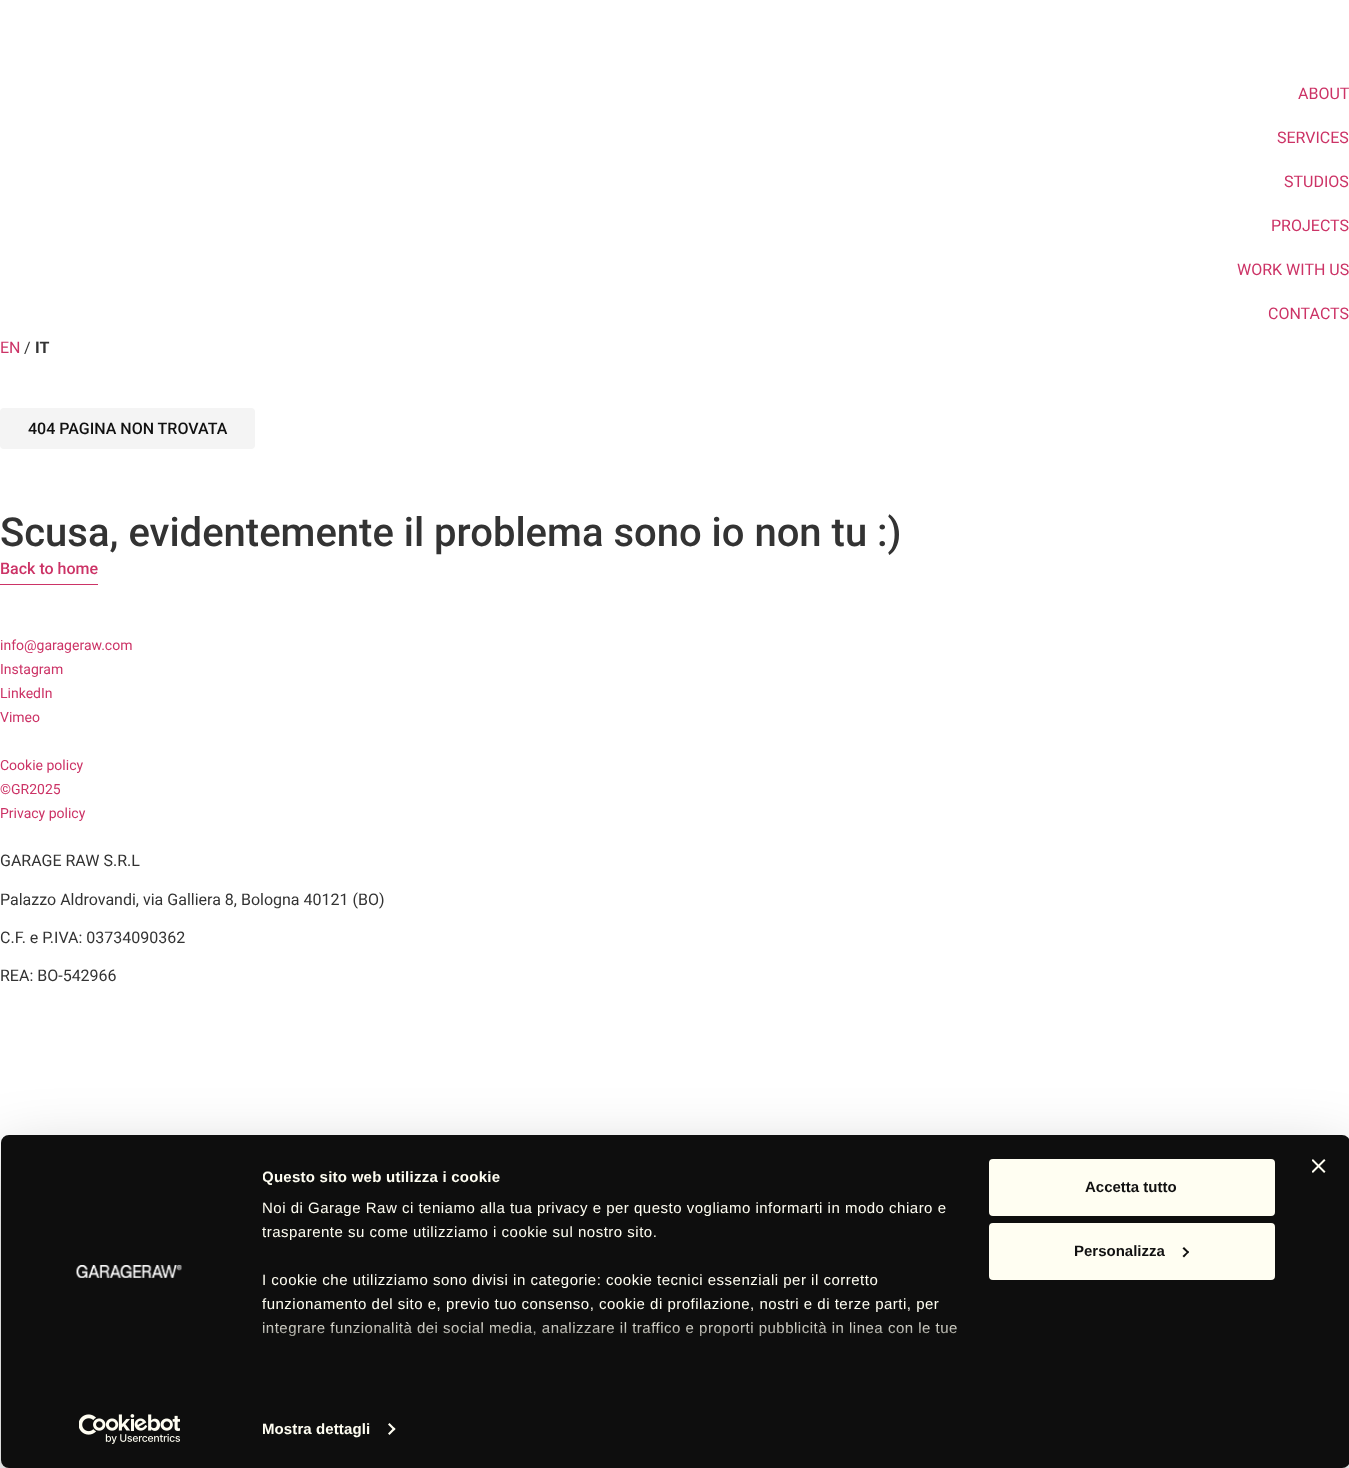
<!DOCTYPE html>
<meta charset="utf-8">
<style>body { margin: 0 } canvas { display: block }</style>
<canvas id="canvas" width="1349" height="1468"></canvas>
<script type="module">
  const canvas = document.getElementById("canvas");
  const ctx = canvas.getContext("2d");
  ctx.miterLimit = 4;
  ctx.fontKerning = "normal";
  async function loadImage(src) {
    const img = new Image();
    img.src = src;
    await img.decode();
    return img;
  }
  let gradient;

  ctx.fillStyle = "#ffffff";
  ctx.fillRect(0, 0, 1349, 1468);
  ctx.font = "16px Roboto";
  ctx.fillStyle = "#cc3366";
  ctx.fillText("ABOUT", 1298, 99);
  ctx.fillText("SERVICES", 1277, 143);
  ctx.fillText("STUDIOS", 1284, 187);
  ctx.fillText("PROJECTS", 1271, 231);
  ctx.fillText("WORK WITH US", 1237, 275);
  ctx.fillText("CONTACTS", 1268, 319);
  ctx.fillText("EN", 0, 353);
  ctx.fillStyle = "#333333";
  ctx.fillText("/", 24, 353);
  ctx.font = "bold 16px Roboto";
  ctx.fillText("IT", 35, 353);
  ctx.fillStyle = "#f4f4f4";
  ctx.beginPath();
  ctx.roundRect(0, 408, 255, 41, 4);
  ctx.fill();
  ctx.font = "500 16px Roboto";
  ctx.fillStyle = "#111111";
  ctx.fillText("404 PAGINA NON TROVATA", 28, 434);
  ctx.font = "500 40px Roboto";
  ctx.fillStyle = "#333333";
  ctx.fillText("Scusa, evidentemente il problema sono io non tu :)", 0, 546);
  ctx.font = "500 16px Roboto";
  ctx.fillStyle = "#cc3366";
  ctx.fillText("Back to home", 0, 574);
  ctx.fillRect(0, 584, 98, 1);
  ctx.font = "14px Roboto";
  ctx.fillText("info@garageraw.com", 0, 650);
  ctx.fillText("Instagram", 0, 674);
  ctx.fillText("LinkedIn", 0, 698);
  ctx.fillText("Vimeo", 0, 722);
  ctx.fillText("Cookie policy", 0, 770);
  ctx.fillText("©GR2025", 0, 794);
  ctx.fillText("Privacy policy", 0, 818);
  ctx.font = "16px Roboto";
  ctx.fillStyle = "#333333";
  ctx.fillText("GARAGE RAW S.R.L", 0, 866);
  ctx.fillText("Palazzo Aldrovandi, via Galliera 8, Bologna 40121 (BO)", 0, 905);
  ctx.fillText("C.F. e P.IVA: 03734090362", 0, 943);
  ctx.fillText("REA: BO-542966", 0, 981);
  ctx.fillStyle = "rgba(0, 0, 0, 0.3)";
  ctx.filter = "blur(35px)";
  ctx.beginPath();
  ctx.roundRect(1, 1165, 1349, 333, 8);
  ctx.fill();
  ctx.filter = "none";
  ctx.fillStyle = "#0e0e0e";
  ctx.beginPath();
  ctx.roundRect(1, 1135, 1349, 333, 8);
  ctx.fill();
  ctx.drawImage(await loadImage("img1.png"), 1312, 1159, 14, 14);
  ctx.save();
  ctx.beginPath();
  ctx.rect(263, 1165, 720, 221);
  ctx.clip();
  ctx.letterSpacing = "0.25px";
  ctx.font = "bold 15px Liberation Sans";
  ctx.fillStyle = "#fffef2";
  ctx.fillText("Questo sito web utilizza i cookie", 262, 1182);
  ctx.restore();
  ctx.letterSpacing = "0.5px";
  ctx.font = "15px Liberation Sans";
  ctx.fillStyle = "#fffef2";
  ctx.fillText("Noi di Garage Raw ci teniamo alla tua privacy e per questo vogliamo informarti in modo chiaro e", 262, 1213);
  ctx.fillText("trasparente su come utilizziamo i cookie sul nostro sito.", 262, 1237);
  ctx.fillText("I cookie che utilizziamo sono divisi in categorie: cookie tecnici essenziali per il corretto", 262, 1285);
  ctx.fillText("funzionamento del sito e, previo tuo consenso, cookie di profilazione, nostri e di terze parti, per", 262, 1309);
  ctx.fillText("integrare funzionalità dei social media, analizzare il traffico e proporti pubblicità in linea con le tue", 262, 1333);
  gradient = ctx.createLinearGradient(612, 1392, 612, 1317);
  gradient.addColorStop(0, "#0e0e0e");
  gradient.addColorStop(0.5, "rgba(14, 14, 14, 0.8)");
  gradient.addColorStop(1, "rgba(14, 14, 14, 0)");
  ctx.fillStyle = gradient;
  ctx.fillRect(263, 1322, 694, 15);
  ctx.letterSpacing = "0.1px";
  ctx.font = "bold 15px Liberation Sans";
  ctx.fillStyle = "#fffef2";
  ctx.fillText("Mostra dettagli", 262, 1434);
  ctx.beginPath();
  ctx.moveTo(389.5, 1423);
  ctx.lineTo(395.5, 1429);
  ctx.lineTo(394, 1430.5);
  ctx.lineTo(388, 1424.5);
  ctx.closePath();
  ctx.fill();
  ctx.beginPath();
  ctx.moveTo(394, 1427.5);
  ctx.lineTo(395.5, 1429);
  ctx.lineTo(389.5, 1435);
  ctx.lineTo(388, 1433.5);
  ctx.closePath();
  ctx.fill();
  ctx.beginPath();
  ctx.roundRect(990, 1160, 284, 55, 3);
  ctx.fill();
  ctx.strokeStyle = "#fffef2";
  ctx.lineWidth = 2;
  ctx.stroke();
  ctx.letterSpacing = "0px";
  ctx.fillStyle = "#111111";
  ctx.fillText("Accetta tutto", 1085, 1192);
  ctx.fillStyle = "#fffef2";
  ctx.beginPath();
  ctx.roundRect(990, 1224, 284, 55, 3);
  ctx.fill();
  ctx.stroke();
  ctx.fillStyle = "#111111";
  ctx.fillText("Personalizza", 1074, 1256);
  ctx.fillStyle = "#0e0e0e";
  ctx.beginPath();
  ctx.moveTo(1184, 1247);
  ctx.lineTo(1189, 1252);
  ctx.lineTo(1188, 1253.5);
  ctx.lineTo(1182.5, 1248.5);
  ctx.closePath();
  ctx.fill();
  ctx.beginPath();
  ctx.moveTo(1188, 1251);
  ctx.lineTo(1189, 1252);
  ctx.lineTo(1184, 1257.5);
  ctx.lineTo(1182.5, 1256);
  ctx.closePath();
  ctx.fill();
  ctx.drawImage(await loadImage("img2.png"), 76, 1265, 106, 13);
  ctx.drawImage(await loadImage("img3.png"), 79, 1414, 101, 30);
</script>
